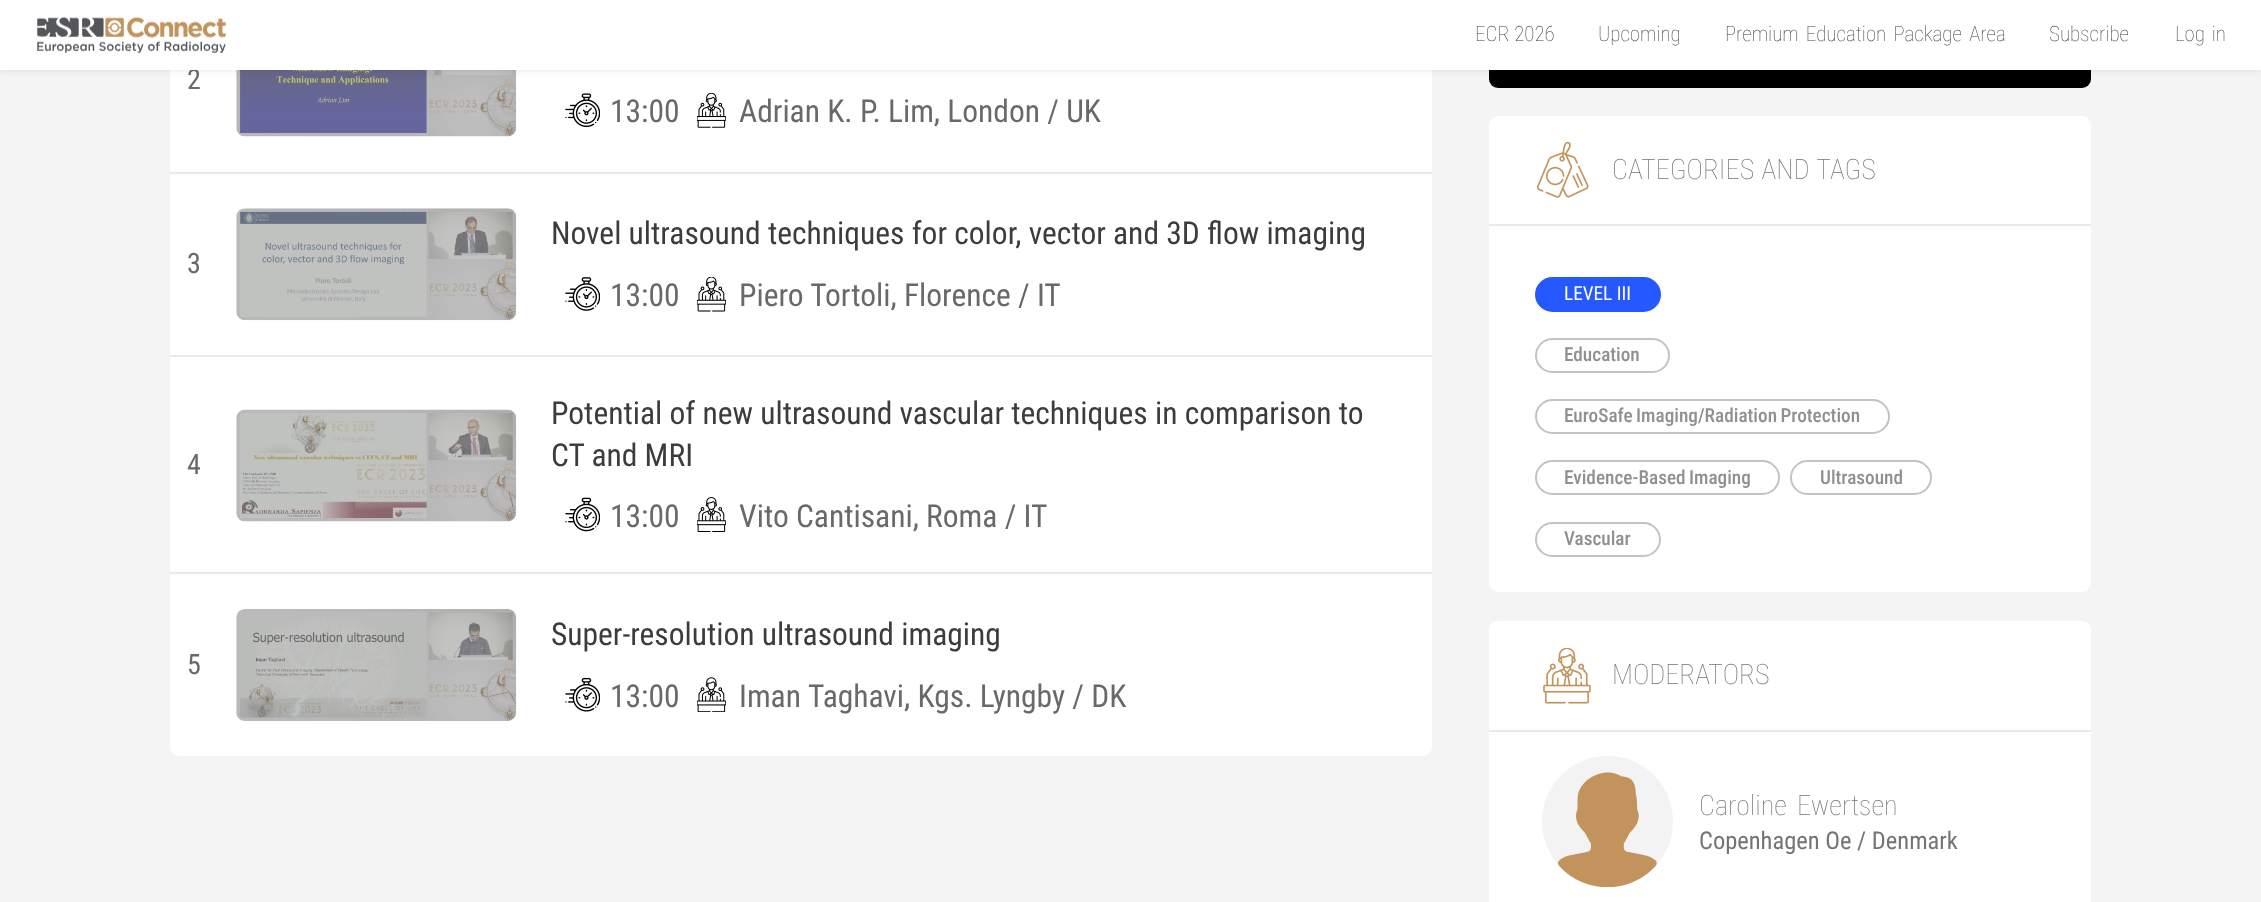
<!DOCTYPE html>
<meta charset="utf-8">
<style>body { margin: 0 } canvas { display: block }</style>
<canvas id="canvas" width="2261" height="902"></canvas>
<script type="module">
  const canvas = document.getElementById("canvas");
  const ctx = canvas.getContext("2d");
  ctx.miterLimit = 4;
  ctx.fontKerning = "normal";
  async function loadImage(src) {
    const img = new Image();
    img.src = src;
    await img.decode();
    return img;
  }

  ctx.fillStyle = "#f4f4f4";
  ctx.fillRect(0, 0, 2261, 902);
  ctx.fillStyle = "#ffffff";
  ctx.beginPath();
  ctx.roundRect(170, -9, 1262, 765, 9);
  ctx.fill();
  ctx.drawImage(await loadImage("img2.png"), 236, 70, 281, 67);
  ctx.fillStyle = "#000000";
  ctx.beginPath();
  ctx.roundRect(1489, -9, 602, 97, 9);
  ctx.fill();
  ctx.fillStyle = "rgba(0, 0, 0, 0.1)";
  ctx.filter = "blur(3.5px)";
  ctx.beginPath();
  ctx.rect(0, 0, 2261, 70);
  ctx.fill();
  ctx.filter = "none";
  ctx.font = "28px Roboto Condensed";
  ctx.fillStyle = "#696969";
  ctx.fillText("2", 187, 89);
  ctx.fillStyle = "#ffffff";
  ctx.fillRect(0, 0, 2261, 70);
  ctx.drawImage(await loadImage("img1.png"), 37, 16, 189, 37);
  ctx.font = "100 21px Roboto Condensed";
  ctx.fillStyle = "#3c3c3c";
  ctx.fillText("ECR 2026", 1475, 41);
  ctx.fillText("Upcoming", 1598, 41);
  ctx.wordSpacing = "2.5px";
  ctx.fillText("Premium Education Package Area", 1725, 41);
  ctx.wordSpacing = "0px";
  ctx.fillText("Subscribe", 2049, 41);
  ctx.wordSpacing = "2px";
  ctx.fillText("Log in", 2175, 41);
  ctx.fillStyle = "#eaeaea";
  ctx.fillRect(170, 172, 1262, 2);
  ctx.drawImage(await loadImage("img3.png"), 565, 93, 35, 35);
  ctx.wordSpacing = "0px";
  ctx.font = "31.5px Roboto Condensed";
  ctx.fillStyle = "#696969";
  ctx.fillText("13:00", 610, 122);
  ctx.drawImage(await loadImage("img4.png"), 697, 93, 29, 35);
  ctx.fillText("Adrian K. P. Lim, London / UK", 739, 122);
  ctx.fillStyle = "#eaeaea";
  ctx.fillRect(170, 355, 1262, 2);
  ctx.font = "28px Roboto Condensed";
  ctx.fillStyle = "#696969";
  ctx.fillText("3", 187, 273);
  ctx.drawImage(await loadImage("img5.png"), 236, 208, 281, 113);
  ctx.font = "31.5px Roboto Condensed";
  ctx.fillStyle = "#3c3c3c";
  ctx.fillText("Novel ultrasound techniques for color, vector and 3D flow imaging", 551, 244);
  ctx.drawImage(await loadImage("img6.png"), 565, 277, 35, 34);
  ctx.fillStyle = "#696969";
  ctx.fillText("13:00", 610, 306);
  ctx.drawImage(await loadImage("img7.png"), 697, 277, 29, 35);
  ctx.fillText("Piero Tortoli, Florence / IT", 739, 306);
  ctx.fillStyle = "#eaeaea";
  ctx.fillRect(170, 572, 1262, 2);
  ctx.font = "28px Roboto Condensed";
  ctx.fillStyle = "#696969";
  ctx.fillText("4", 187, 474);
  ctx.drawImage(await loadImage("img8.png"), 236, 409, 281, 113);
  ctx.font = "31.5px Roboto Condensed";
  ctx.fillStyle = "#3c3c3c";
  ctx.fillText("Potential of new ultrasound vascular techniques in comparison to", 551, 424);
  ctx.fillText("CT and MRI", 551, 466);
  ctx.drawImage(await loadImage("img9.png"), 565, 497, 35, 35);
  ctx.fillStyle = "#696969";
  ctx.fillText("13:00", 610, 527);
  ctx.drawImage(await loadImage("img10.png"), 697, 497, 29, 35);
  ctx.fillText("Vito Cantisani, Roma / IT", 739, 527);
  ctx.font = "28px Roboto Condensed";
  ctx.fillText("5", 187, 674);
  ctx.drawImage(await loadImage("img11.png"), 236, 609, 281, 112);
  ctx.font = "31.5px Roboto Condensed";
  ctx.fillStyle = "#3c3c3c";
  ctx.fillText("Super-resolution ultrasound imaging", 551, 645);
  ctx.drawImage(await loadImage("img12.png"), 565, 677, 35, 35);
  ctx.fillStyle = "#696969";
  ctx.fillText("13:00", 610, 707);
  ctx.drawImage(await loadImage("img13.png"), 697, 677, 29, 35);
  ctx.fillText("Iman", 739, 707);
  ctx.fillText("Taghavi, Kgs. Lyngby / DK", 808, 707);
  ctx.fillStyle = "#ffffff";
  ctx.beginPath();
  ctx.roundRect(1489, 116, 602, 476, 9);
  ctx.fill();
  ctx.fillStyle = "#eaeaea";
  ctx.fillRect(1489, 224, 602, 2);
  ctx.drawImage(await loadImage("img14.png"), 1536, 142, 53, 56);
  ctx.wordSpacing = "1px";
  ctx.font = "100 28px Roboto Condensed";
  ctx.fillStyle = "#747474";
  ctx.fillText("CATEGORIES AND TAGS", 1612, 179);
  ctx.fillStyle = "#2658ff";
  ctx.beginPath();
  ctx.roundRect(1536, 278, 124, 33, 16.5);
  ctx.fill();
  ctx.strokeStyle = "#2658ff";
  ctx.lineWidth = 2;
  ctx.stroke();
  ctx.wordSpacing = "0px";
  ctx.font = "19.25px Roboto Condensed";
  ctx.fillStyle = "#ffffff";
  ctx.fillText("LEVEL III", 1564, 300);
  ctx.beginPath();
  ctx.roundRect(1536, 339, 133, 33, 16.5);
  ctx.strokeStyle = "#c3c3c3";
  ctx.stroke();
  ctx.font = "500 19.25px Roboto Condensed";
  ctx.fillStyle = "#909090";
  ctx.fillText("Education", 1564, 361);
  ctx.beginPath();
  ctx.roundRect(1536, 400, 353, 33, 16.5);
  ctx.stroke();
  ctx.wordSpacing = "-1px";
  ctx.fillText("EuroSafe Imaging/Radiation Protection", 1564, 422);
  ctx.beginPath();
  ctx.roundRect(1536, 461, 243, 33, 16.5);
  ctx.stroke();
  ctx.fillText("Evidence-Based Imaging", 1564, 484);
  ctx.beginPath();
  ctx.roundRect(1791, 461, 140, 33, 16.5);
  ctx.stroke();
  ctx.wordSpacing = "0px";
  ctx.fillText("Ultrasound", 1820, 484);
  ctx.beginPath();
  ctx.roundRect(1536, 523, 124, 33, 16.5);
  ctx.stroke();
  ctx.fillText("Vascular", 1564, 545);
  ctx.fillStyle = "#ffffff";
  ctx.beginPath();
  ctx.roundRect(1489, 621, 602, 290, 9);
  ctx.fill();
  ctx.fillStyle = "#eaeaea";
  ctx.fillRect(1489, 730, 602, 2);
  ctx.drawImage(await loadImage("img15.png"), 1543, 648, 48, 56);
  ctx.font = "100 28px Roboto Condensed";
  ctx.fillStyle = "#747474";
  ctx.fillText("MODERATORS", 1612, 684);
  ctx.drawImage(await loadImage("img16.png"), 1542, 756, 131, 131);
  ctx.fillText("Caroline", 1699, 815);
  ctx.fillText("Ewertsen", 1797, 815);
  ctx.font = "24.5px Roboto Condensed";
  ctx.fillText("Copenhagen Oe / Denmark", 1699, 849);
</script>
